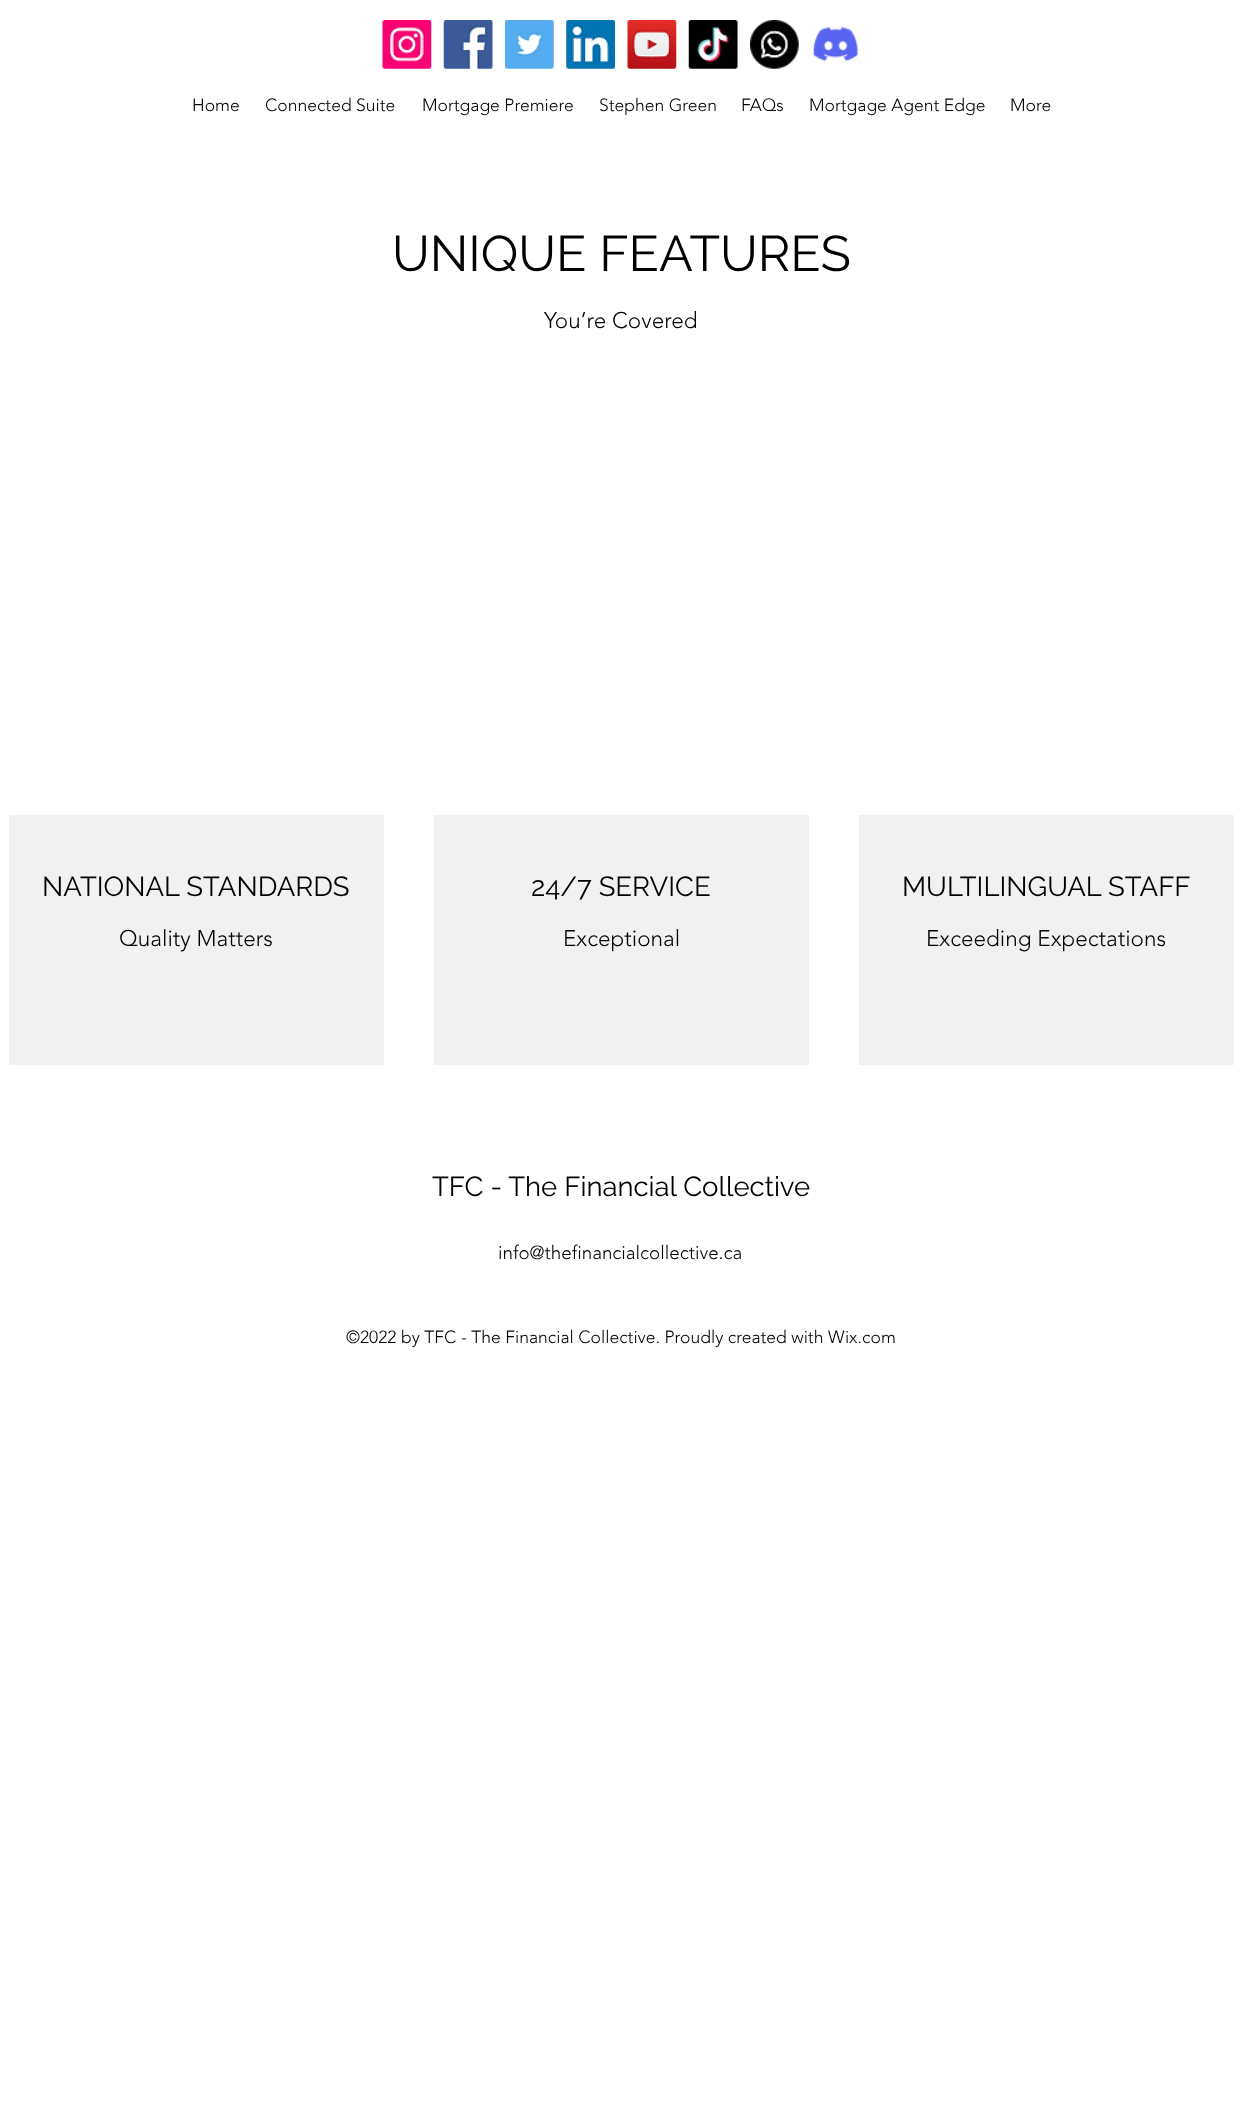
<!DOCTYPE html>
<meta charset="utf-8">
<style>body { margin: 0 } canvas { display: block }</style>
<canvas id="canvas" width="1242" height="2102"></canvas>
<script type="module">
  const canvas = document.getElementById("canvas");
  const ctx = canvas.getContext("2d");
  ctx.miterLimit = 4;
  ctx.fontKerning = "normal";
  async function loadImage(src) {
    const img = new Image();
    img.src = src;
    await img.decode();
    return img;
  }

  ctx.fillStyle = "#ffffff";
  ctx.fillRect(0, 0, 1242, 2102);
  ctx.drawImage(await loadImage("img1.png"), 382, 20, 50, 49);
  ctx.drawImage(await loadImage("img2.png"), 443, 20, 50, 49);
  ctx.drawImage(await loadImage("img3.png"), 505, 20, 49, 49);
  ctx.drawImage(await loadImage("img4.png"), 566, 20, 49, 49);
  ctx.drawImage(await loadImage("img5.png"), 627, 20, 50, 49);
  ctx.drawImage(await loadImage("img6.png"), 688, 20, 50, 49);
  ctx.drawImage(await loadImage("img7.png"), 750, 20, 49, 49);
  ctx.drawImage(await loadImage("img8.png"), 812, 26, 47, 36);
  ctx.font = "300 17.5px 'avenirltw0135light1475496'";
  ctx.fillStyle = "#000000";
  ctx.fillText("Home", 192, 111);
  ctx.fillText("Connected Suite", 265, 111);
  ctx.fillText("Mortgage Premiere", 422, 111);
  ctx.fillText("Stephen Green", 599, 111);
  ctx.fillText("FAQs", 741, 111);
  ctx.fillText("Mortgage Agent Edge", 809, 111);
  ctx.fillText("More", 1010, 111);
  ctx.font = "50px Raleway";
  ctx.fillText("UNIQUE FEATURES", 392, 271);
  ctx.font = "300 22.5px 'avenirltw0135light1475496'";
  ctx.fillText("You’re Covered", 544, 328);
  ctx.fillStyle = "#f1f1f1";
  ctx.fillRect(9, 815, 375, 250);
  ctx.font = "27.5px Raleway";
  ctx.fillStyle = "#000000";
  ctx.fillText("NATIONAL STANDARDS", 42, 896);
  ctx.font = "300 22.5px 'avenirltw0135light1475496'";
  ctx.fillText("Quality Matters", 119, 946);
  ctx.fillStyle = "#f1f1f1";
  ctx.fillRect(434, 815, 375, 250);
  ctx.font = "27.5px Raleway";
  ctx.fillStyle = "#000000";
  ctx.fillText("24/7 SERVICE", 531, 896);
  ctx.font = "300 22.5px 'avenirltw0135light1475496'";
  ctx.fillText("Exceptional", 563, 946);
  ctx.fillStyle = "#f1f1f1";
  ctx.fillRect(859, 815, 375, 250);
  ctx.font = "27.5px Raleway";
  ctx.fillStyle = "#000000";
  ctx.fillText("MULTILINGUAL STAFF", 902, 896);
  ctx.font = "300 22.5px 'avenirltw0135light1475496'";
  ctx.fillText("Exceeding Expectations", 926, 946);
  ctx.font = "27.5px Raleway";
  ctx.fillText("TFC - The Financial Collective", 432, 1196);
  ctx.font = "300 18.75px 'avenirltw0135light1475496'";
  ctx.fillText("info@thefinancialcollective.ca", 498, 1259);
  ctx.font = "300 17.5px 'avenirltw0135light1475496'";
  ctx.fillText("©2022 by TFC - The Financial Collective. Proudly created with Wix.com", 346, 1343);
</script>
